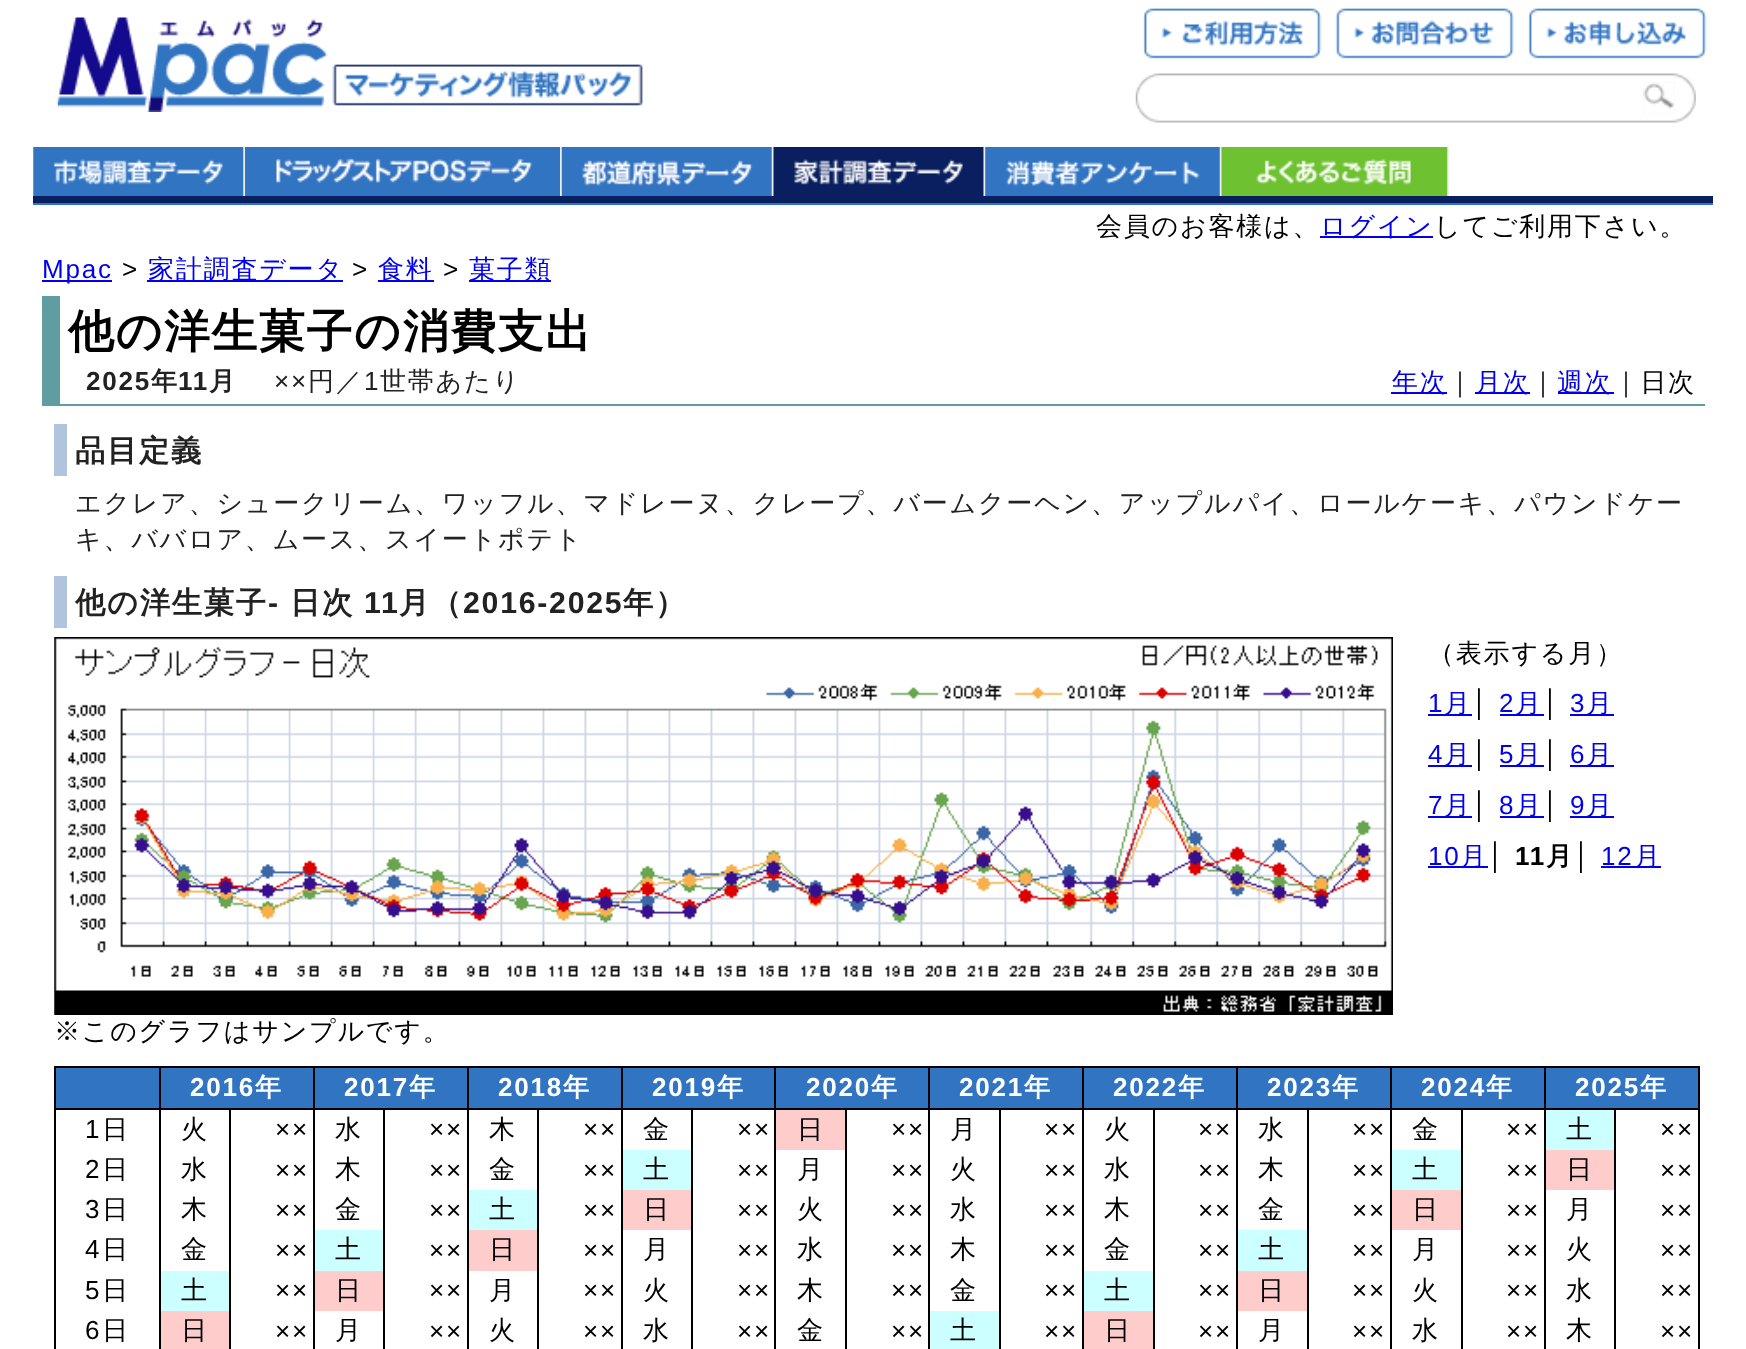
<!DOCTYPE html>
<meta charset="utf-8">
<style>body { margin: 0 } canvas { display: block }</style>
<canvas id="canvas" width="1746" height="1349"></canvas>
<script type="module">
  const canvas = document.getElementById("canvas");
  const ctx = canvas.getContext("2d");
  ctx.miterLimit = 4;
  ctx.fontKerning = "normal";
  async function loadImage(src) {
    const img = new Image();
    img.src = src;
    await img.decode();
    return img;
  }

  ctx.fillStyle = "#ffffff";
  ctx.fillRect(0, 0, 1746, 1349);
  ctx.drawImage(await loadImage("img1.png"), 57, 17, 586, 95);
  ctx.drawImage(await loadImage("img2.png"), 1143, 8, 179, 51);
  ctx.drawImage(await loadImage("img3.png"), 1335, 8, 179, 51);
  ctx.drawImage(await loadImage("img4.png"), 1528, 8, 179, 51);
  ctx.drawImage(await loadImage("img5.png"), 1135, 73, 561, 50);
  ctx.fillStyle = "#efefef";
  ctx.fillRect(1643, 82, 32, 32);
  ctx.drawImage(await loadImage("img6.png"), 1643, 82, 32, 32);
  ctx.fillStyle = "#eeeeee";
  ctx.fillRect(243, 147, 2, 49);
  ctx.drawImage(await loadImage("img7.png"), 33, 147, 211, 49);
  ctx.fillRect(560, 147, 2, 49);
  ctx.drawImage(await loadImage("img8.png"), 245, 147, 315, 49);
  ctx.fillRect(772, 147, 2, 49);
  ctx.drawImage(await loadImage("img9.png"), 561, 147, 211, 49);
  ctx.fillRect(984, 147, 2, 49);
  ctx.drawImage(await loadImage("img10.png"), 773, 147, 211, 49);
  ctx.fillRect(1220, 147, 2, 49);
  ctx.drawImage(await loadImage("img11.png"), 985, 147, 235, 49);
  ctx.fillRect(1447, 147, 2, 49);
  ctx.drawImage(await loadImage("img12.png"), 1221, 147, 227, 49);
  ctx.fillStyle = "#091f5f";
  ctx.fillRect(33, 196, 1680, 7);
  ctx.fillStyle = "#3074c2";
  ctx.fillRect(33, 203, 1680, 2);
  ctx.letterSpacing = "1.75px";
  ctx.font = "500 26.05px WenQuanYi Zen Hei";
  ctx.fillStyle = "#000000";
  ctx.fillText("会員のお客様は、", 1096, 235);
  ctx.fillStyle = "#0000ee";
  ctx.fillRect(1320, 236, 113, 2);
  ctx.fillText("ログイン", 1320, 235);
  ctx.fillStyle = "#000000";
  ctx.fillText("してご利用下さい。", 1434, 235);
  ctx.fillStyle = "#0000ee";
  ctx.fillRect(42, 280, 70, 2);
  ctx.font = "26.05px Liberation Sans";
  ctx.fillText("Mpac", 42, 278);
  ctx.fillStyle = "#000000";
  ctx.fillText(">", 122, 278);
  ctx.fillStyle = "#0000ee";
  ctx.fillRect(147, 280, 196, 2);
  ctx.font = "500 26.05px WenQuanYi Zen Hei";
  ctx.fillText("家計調査データ", 148, 278);
  ctx.font = "26.05px Liberation Sans";
  ctx.fillStyle = "#000000";
  ctx.fillText(">", 352, 278);
  ctx.fillStyle = "#0000ee";
  ctx.fillRect(378, 280, 56, 2);
  ctx.font = "500 26.05px WenQuanYi Zen Hei";
  ctx.fillText("食料", 378, 278);
  ctx.font = "26.05px Liberation Sans";
  ctx.fillStyle = "#000000";
  ctx.fillText(">", 443, 278);
  ctx.fillStyle = "#0000ee";
  ctx.fillRect(469, 280, 82, 2);
  ctx.font = "500 26.05px WenQuanYi Zen Hei";
  ctx.fillText("菓子類", 469, 278);
  ctx.fillStyle = "#5f9ea0";
  ctx.fillRect(60, 404, 1645, 2);
  ctx.fillRect(42, 296, 18, 110);
  ctx.font = "bold 45.75px WenQuanYi Zen Hei";
  ctx.fillStyle = "#000000";
  ctx.fillText("他の洋生菓子の消費支出", 68, 347);
  ctx.fillStyle = "#0000ee";
  ctx.fillRect(1391, 392, 56, 2);
  ctx.font = "500 26.05px WenQuanYi Zen Hei";
  ctx.fillText("年次", 1392, 391);
  ctx.fillStyle = "#000000";
  ctx.fillText("｜", 1447, 391);
  ctx.fillStyle = "#0000ee";
  ctx.fillRect(1475, 392, 55, 2);
  ctx.fillText("月次", 1475, 391);
  ctx.fillStyle = "#000000";
  ctx.fillText("｜", 1530, 391);
  ctx.fillStyle = "#0000ee";
  ctx.fillRect(1558, 392, 56, 2);
  ctx.fillText("週次", 1557, 391);
  ctx.fillStyle = "#000000";
  ctx.fillText("｜日次", 1613, 391);
  ctx.font = "bold 26.05px Liberation Sans";
  ctx.fillStyle = "#222222";
  ctx.fillText("2025", 86, 390);
  ctx.font = "bold 26.05px WenQuanYi Zen Hei";
  ctx.fillText("年", 151, 390);
  ctx.font = "bold 26.05px Liberation Sans";
  ctx.fillText("11", 178, 390);
  ctx.font = "bold 26.05px WenQuanYi Zen Hei";
  ctx.fillText("月", 209, 390);
  ctx.font = "26.05px Liberation Sans";
  ctx.fillText("××", 274, 390);
  ctx.font = "500 26.05px WenQuanYi Zen Hei";
  ctx.fillText("円／", 308, 390);
  ctx.font = "26.05px Liberation Sans";
  ctx.fillText("1", 364, 390);
  ctx.font = "500 26.05px WenQuanYi Zen Hei";
  ctx.fillText("世帯あたり", 380, 390);
  ctx.fillStyle = "#b0c4de";
  ctx.fillRect(54, 424, 13, 52);
  ctx.font = "bold 30.25px WenQuanYi Zen Hei";
  ctx.fillStyle = "#222222";
  ctx.fillText("品目定義", 75, 461);
  ctx.font = "500 26.05px WenQuanYi Zen Hei";
  ctx.fillText("エクレア、シュークリーム、ワッフル、マドレーヌ、クレープ、バームクーヘン、アップルパイ、ロールケーキ、パウンドケー", 75, 512);
  ctx.fillText("キ、ババロア、ムース、スイートポテト", 75, 548);
  ctx.fillStyle = "#b0c4de";
  ctx.fillRect(54, 576, 13, 52);
  ctx.font = "bold 30.25px WenQuanYi Zen Hei";
  ctx.fillStyle = "#222222";
  ctx.fillText("他の洋生菓子", 75, 613);
  ctx.font = "bold 30.25px Liberation Sans";
  ctx.fillText("-", 268, 613);
  ctx.font = "bold 30.25px WenQuanYi Zen Hei";
  ctx.fillText("日次", 290, 613);
  ctx.font = "bold 30.25px Liberation Sans";
  ctx.fillText("11", 364, 613);
  ctx.font = "bold 30.25px WenQuanYi Zen Hei";
  ctx.fillText("月（", 399, 613);
  ctx.font = "bold 30.25px Liberation Sans";
  ctx.fillText("2016-2025", 463, 613);
  ctx.font = "bold 30.25px WenQuanYi Zen Hei";
  ctx.fillText("年）", 623, 613);
  ctx.font = "500 26.05px WenQuanYi Zen Hei";
  ctx.fillStyle = "#000000";
  ctx.fillText("（表示する月）", 1428, 662);
  ctx.font = "26.05px Liberation Sans";
  ctx.fillStyle = "#0000ee";
  ctx.fillText("1", 1428, 712);
  ctx.fillRect(1428, 714, 44, 2);
  ctx.font = "500 26.05px WenQuanYi Zen Hei";
  ctx.fillText("月", 1444, 712);
  ctx.font = "26.05px Liberation Sans";
  ctx.fillStyle = "#000000";
  ctx.fillText("│", 1472, 712);
  ctx.fillStyle = "#0000ee";
  ctx.fillText("2", 1499, 712);
  ctx.fillRect(1500, 714, 44, 2);
  ctx.font = "500 26.05px WenQuanYi Zen Hei";
  ctx.fillText("月", 1515, 712);
  ctx.font = "26.05px Liberation Sans";
  ctx.fillStyle = "#000000";
  ctx.fillText("│", 1543, 712);
  ctx.fillStyle = "#0000ee";
  ctx.fillText("3", 1570, 712);
  ctx.fillRect(1570, 714, 44, 2);
  ctx.font = "500 26.05px WenQuanYi Zen Hei";
  ctx.fillText("月", 1586, 712);
  ctx.font = "26.05px Liberation Sans";
  ctx.fillText("4", 1428, 763);
  ctx.fillRect(1428, 765, 44, 2);
  ctx.font = "500 26.05px WenQuanYi Zen Hei";
  ctx.fillText("月", 1444, 763);
  ctx.font = "26.05px Liberation Sans";
  ctx.fillStyle = "#000000";
  ctx.fillText("│", 1472, 763);
  ctx.fillStyle = "#0000ee";
  ctx.fillText("5", 1499, 763);
  ctx.fillRect(1500, 765, 44, 2);
  ctx.font = "500 26.05px WenQuanYi Zen Hei";
  ctx.fillText("月", 1515, 763);
  ctx.font = "26.05px Liberation Sans";
  ctx.fillStyle = "#000000";
  ctx.fillText("│", 1543, 763);
  ctx.fillStyle = "#0000ee";
  ctx.fillText("6", 1570, 763);
  ctx.fillRect(1570, 765, 44, 2);
  ctx.font = "500 26.05px WenQuanYi Zen Hei";
  ctx.fillText("月", 1586, 763);
  ctx.font = "26.05px Liberation Sans";
  ctx.fillText("7", 1428, 814);
  ctx.fillRect(1428, 816, 44, 2);
  ctx.font = "500 26.05px WenQuanYi Zen Hei";
  ctx.fillText("月", 1444, 814);
  ctx.font = "26.05px Liberation Sans";
  ctx.fillStyle = "#000000";
  ctx.fillText("│", 1472, 814);
  ctx.fillStyle = "#0000ee";
  ctx.fillText("8", 1499, 814);
  ctx.fillRect(1500, 816, 44, 2);
  ctx.font = "500 26.05px WenQuanYi Zen Hei";
  ctx.fillText("月", 1515, 814);
  ctx.font = "26.05px Liberation Sans";
  ctx.fillStyle = "#000000";
  ctx.fillText("│", 1543, 814);
  ctx.fillStyle = "#0000ee";
  ctx.fillText("9", 1570, 814);
  ctx.fillRect(1570, 816, 44, 2);
  ctx.font = "500 26.05px WenQuanYi Zen Hei";
  ctx.fillText("月", 1586, 814);
  ctx.font = "26.05px Liberation Sans";
  ctx.fillText("10", 1428, 865);
  ctx.fillRect(1428, 866, 60, 2);
  ctx.font = "500 26.05px WenQuanYi Zen Hei";
  ctx.fillText("月", 1460, 865);
  ctx.font = "26.05px Liberation Sans";
  ctx.fillStyle = "#000000";
  ctx.fillText("│", 1488, 865);
  ctx.font = "bold 26.05px Liberation Sans";
  ctx.fillText("11", 1515, 865);
  ctx.font = "bold 26.05px WenQuanYi Zen Hei";
  ctx.fillText("月", 1546, 865);
  ctx.font = "26.05px Liberation Sans";
  ctx.fillText("│", 1574, 865);
  ctx.fillStyle = "#0000ee";
  ctx.fillText("12", 1601, 865);
  ctx.fillRect(1601, 866, 60, 2);
  ctx.font = "500 26.05px WenQuanYi Zen Hei";
  ctx.fillText("月", 1634, 865);
  ctx.drawImage(await loadImage("img13.png"), 54, 637, 1339, 378);
  ctx.fillStyle = "#000000";
  ctx.fillText("※このグラフはサンプルです。", 54, 1040);
  ctx.fillStyle = "#3074c2";
  ctx.fillRect(56, 1068, 103, 40);
  ctx.fillStyle = "#000000";
  ctx.fillRect(1544, 1066, 155, 2);
  ctx.fillRect(1698, 1108, 2, 241);
  ctx.fillRect(1698, 1066, 2, 44);
  ctx.fillRect(1544, 1108, 2, 241);
  ctx.fillRect(1614, 1108, 2, 241);
  ctx.fillRect(1544, 1108, 155, 2);
  ctx.fillRect(1544, 1066, 2, 44);
  ctx.fillRect(1390, 1066, 155, 2);
  ctx.fillRect(1390, 1108, 2, 241);
  ctx.fillRect(1461, 1108, 2, 241);
  ctx.fillRect(1390, 1108, 155, 2);
  ctx.fillRect(1390, 1066, 2, 44);
  ctx.fillRect(1236, 1066, 155, 2);
  ctx.fillRect(1236, 1108, 2, 241);
  ctx.fillRect(1307, 1108, 2, 241);
  ctx.fillRect(1236, 1108, 155, 2);
  ctx.fillRect(1236, 1066, 2, 44);
  ctx.fillRect(1082, 1066, 155, 2);
  ctx.fillRect(1082, 1108, 2, 241);
  ctx.fillRect(1153, 1108, 2, 241);
  ctx.fillRect(1082, 1108, 155, 2);
  ctx.fillRect(1082, 1066, 2, 44);
  ctx.fillRect(928, 1066, 155, 2);
  ctx.fillRect(928, 1108, 2, 241);
  ctx.fillRect(999, 1108, 2, 241);
  ctx.fillRect(928, 1108, 155, 2);
  ctx.fillRect(928, 1066, 2, 44);
  ctx.fillRect(774, 1066, 155, 2);
  ctx.fillRect(774, 1108, 2, 241);
  ctx.fillRect(845, 1108, 2, 241);
  ctx.fillRect(774, 1108, 155, 2);
  ctx.fillRect(774, 1066, 2, 44);
  ctx.fillRect(621, 1066, 154, 2);
  ctx.fillRect(621, 1108, 2, 241);
  ctx.fillRect(691, 1108, 2, 241);
  ctx.fillRect(621, 1108, 154, 2);
  ctx.fillRect(621, 1066, 2, 44);
  ctx.fillRect(467, 1066, 156, 2);
  ctx.fillRect(467, 1108, 2, 241);
  ctx.fillRect(537, 1108, 2, 241);
  ctx.fillRect(467, 1108, 156, 2);
  ctx.fillRect(467, 1066, 2, 44);
  ctx.fillRect(313, 1066, 156, 2);
  ctx.fillRect(313, 1108, 2, 241);
  ctx.fillRect(383, 1108, 2, 241);
  ctx.fillRect(313, 1108, 156, 2);
  ctx.fillRect(313, 1066, 2, 44);
  ctx.fillRect(159, 1066, 156, 2);
  ctx.fillRect(159, 1108, 2, 241);
  ctx.fillRect(229, 1108, 2, 241);
  ctx.fillRect(159, 1108, 156, 2);
  ctx.fillRect(159, 1066, 2, 44);
  ctx.fillRect(54, 1066, 107, 2);
  ctx.fillRect(54, 1108, 2, 241);
  ctx.fillRect(54, 1108, 107, 2);
  ctx.fillRect(54, 1066, 2, 44);
  ctx.fillStyle = "#3074c2";
  ctx.fillRect(161, 1068, 152, 40);
  ctx.font = "bold 26.05px Liberation Sans";
  ctx.fillStyle = "#ffffff";
  ctx.fillText("2016", 190, 1096);
  ctx.font = "bold 26.05px WenQuanYi Zen Hei";
  ctx.fillText("年", 255, 1096);
  ctx.fillStyle = "#3074c2";
  ctx.fillRect(315, 1068, 152, 40);
  ctx.font = "bold 26.05px Liberation Sans";
  ctx.fillStyle = "#ffffff";
  ctx.fillText("2017", 344, 1096);
  ctx.font = "bold 26.05px WenQuanYi Zen Hei";
  ctx.fillText("年", 409, 1096);
  ctx.fillStyle = "#3074c2";
  ctx.fillRect(469, 1068, 152, 40);
  ctx.font = "bold 26.05px Liberation Sans";
  ctx.fillStyle = "#ffffff";
  ctx.fillText("2018", 498, 1096);
  ctx.font = "bold 26.05px WenQuanYi Zen Hei";
  ctx.fillText("年", 563, 1096);
  ctx.fillStyle = "#3074c2";
  ctx.fillRect(623, 1068, 151, 40);
  ctx.font = "bold 26.05px Liberation Sans";
  ctx.fillStyle = "#ffffff";
  ctx.fillText("2019", 652, 1096);
  ctx.font = "bold 26.05px WenQuanYi Zen Hei";
  ctx.fillText("年", 717, 1096);
  ctx.fillStyle = "#3074c2";
  ctx.fillRect(776, 1068, 152, 40);
  ctx.font = "bold 26.05px Liberation Sans";
  ctx.fillStyle = "#ffffff";
  ctx.fillText("2020", 806, 1096);
  ctx.font = "bold 26.05px WenQuanYi Zen Hei";
  ctx.fillText("年", 871, 1096);
  ctx.fillStyle = "#3074c2";
  ctx.fillRect(930, 1068, 152, 40);
  ctx.font = "bold 26.05px Liberation Sans";
  ctx.fillStyle = "#ffffff";
  ctx.fillText("2021", 959, 1096);
  ctx.font = "bold 26.05px WenQuanYi Zen Hei";
  ctx.fillText("年", 1024, 1096);
  ctx.fillStyle = "#3074c2";
  ctx.fillRect(1084, 1068, 152, 40);
  ctx.font = "bold 26.05px Liberation Sans";
  ctx.fillStyle = "#ffffff";
  ctx.fillText("2022", 1113, 1096);
  ctx.font = "bold 26.05px WenQuanYi Zen Hei";
  ctx.fillText("年", 1178, 1096);
  ctx.fillStyle = "#3074c2";
  ctx.fillRect(1238, 1068, 152, 40);
  ctx.font = "bold 26.05px Liberation Sans";
  ctx.fillStyle = "#ffffff";
  ctx.fillText("2023", 1267, 1096);
  ctx.font = "bold 26.05px WenQuanYi Zen Hei";
  ctx.fillText("年", 1332, 1096);
  ctx.fillStyle = "#3074c2";
  ctx.fillRect(1392, 1068, 152, 40);
  ctx.font = "bold 26.05px Liberation Sans";
  ctx.fillStyle = "#ffffff";
  ctx.fillText("2024", 1421, 1096);
  ctx.font = "bold 26.05px WenQuanYi Zen Hei";
  ctx.fillText("年", 1486, 1096);
  ctx.fillStyle = "#3074c2";
  ctx.fillRect(1546, 1068, 152, 40);
  ctx.font = "bold 26.05px Liberation Sans";
  ctx.fillStyle = "#ffffff";
  ctx.fillText("2025", 1575, 1096);
  ctx.font = "bold 26.05px WenQuanYi Zen Hei";
  ctx.fillText("年", 1640, 1096);
  ctx.font = "26.05px Liberation Sans";
  ctx.fillStyle = "#000000";
  ctx.fillText("1", 85, 1138);
  ctx.font = "500 26.05px WenQuanYi Zen Hei";
  ctx.fillText("日", 102, 1138);
  ctx.fillText("火", 181, 1138);
  ctx.font = "26.05px Liberation Sans";
  ctx.fillText("××", 275, 1138);
  ctx.font = "500 26.05px WenQuanYi Zen Hei";
  ctx.fillText("水", 335, 1138);
  ctx.font = "26.05px Liberation Sans";
  ctx.fillText("××", 429, 1138);
  ctx.font = "500 26.05px WenQuanYi Zen Hei";
  ctx.fillText("木", 489, 1138);
  ctx.font = "26.05px Liberation Sans";
  ctx.fillText("××", 583, 1138);
  ctx.font = "500 26.05px WenQuanYi Zen Hei";
  ctx.fillText("金", 643, 1138);
  ctx.font = "26.05px Liberation Sans";
  ctx.fillText("××", 737, 1138);
  ctx.fillStyle = "#ffcccc";
  ctx.fillRect(776, 1110, 69, 40);
  ctx.font = "500 26.05px WenQuanYi Zen Hei";
  ctx.fillStyle = "#000000";
  ctx.fillText("日", 797, 1138);
  ctx.font = "26.05px Liberation Sans";
  ctx.fillText("××", 891, 1138);
  ctx.font = "500 26.05px WenQuanYi Zen Hei";
  ctx.fillText("月", 950, 1138);
  ctx.font = "26.05px Liberation Sans";
  ctx.fillText("××", 1044, 1138);
  ctx.font = "500 26.05px WenQuanYi Zen Hei";
  ctx.fillText("火", 1104, 1138);
  ctx.font = "26.05px Liberation Sans";
  ctx.fillText("××", 1198, 1138);
  ctx.font = "500 26.05px WenQuanYi Zen Hei";
  ctx.fillText("水", 1258, 1138);
  ctx.font = "26.05px Liberation Sans";
  ctx.fillText("××", 1352, 1138);
  ctx.font = "500 26.05px WenQuanYi Zen Hei";
  ctx.fillText("金", 1412, 1138);
  ctx.font = "26.05px Liberation Sans";
  ctx.fillText("××", 1506, 1138);
  ctx.fillStyle = "#ccffff";
  ctx.fillRect(1546, 1110, 68, 40);
  ctx.font = "500 26.05px WenQuanYi Zen Hei";
  ctx.fillStyle = "#000000";
  ctx.fillText("土", 1566, 1138);
  ctx.font = "26.05px Liberation Sans";
  ctx.fillText("××", 1660, 1138);
  ctx.fillText("2", 85, 1178);
  ctx.font = "500 26.05px WenQuanYi Zen Hei";
  ctx.fillText("日", 102, 1178);
  ctx.fillText("水", 181, 1178);
  ctx.font = "26.05px Liberation Sans";
  ctx.fillText("××", 275, 1179);
  ctx.font = "500 26.05px WenQuanYi Zen Hei";
  ctx.fillText("木", 335, 1178);
  ctx.font = "26.05px Liberation Sans";
  ctx.fillText("××", 429, 1179);
  ctx.font = "500 26.05px WenQuanYi Zen Hei";
  ctx.fillText("金", 489, 1178);
  ctx.font = "26.05px Liberation Sans";
  ctx.fillText("××", 583, 1179);
  ctx.fillStyle = "#ccffff";
  ctx.fillRect(623, 1150, 68, 40);
  ctx.font = "500 26.05px WenQuanYi Zen Hei";
  ctx.fillStyle = "#000000";
  ctx.fillText("土", 643, 1178);
  ctx.font = "26.05px Liberation Sans";
  ctx.fillText("××", 737, 1179);
  ctx.font = "500 26.05px WenQuanYi Zen Hei";
  ctx.fillText("月", 797, 1178);
  ctx.font = "26.05px Liberation Sans";
  ctx.fillText("××", 891, 1179);
  ctx.font = "500 26.05px WenQuanYi Zen Hei";
  ctx.fillText("火", 950, 1178);
  ctx.font = "26.05px Liberation Sans";
  ctx.fillText("××", 1044, 1179);
  ctx.font = "500 26.05px WenQuanYi Zen Hei";
  ctx.fillText("水", 1104, 1178);
  ctx.font = "26.05px Liberation Sans";
  ctx.fillText("××", 1198, 1179);
  ctx.font = "500 26.05px WenQuanYi Zen Hei";
  ctx.fillText("木", 1258, 1178);
  ctx.font = "26.05px Liberation Sans";
  ctx.fillText("××", 1352, 1179);
  ctx.fillStyle = "#ccffff";
  ctx.fillRect(1392, 1150, 69, 40);
  ctx.font = "500 26.05px WenQuanYi Zen Hei";
  ctx.fillStyle = "#000000";
  ctx.fillText("土", 1412, 1178);
  ctx.font = "26.05px Liberation Sans";
  ctx.fillText("××", 1506, 1179);
  ctx.fillStyle = "#ffcccc";
  ctx.fillRect(1546, 1150, 68, 40);
  ctx.font = "500 26.05px WenQuanYi Zen Hei";
  ctx.fillStyle = "#000000";
  ctx.fillText("日", 1566, 1178);
  ctx.font = "26.05px Liberation Sans";
  ctx.fillText("××", 1660, 1179);
  ctx.fillText("3", 85, 1218);
  ctx.font = "500 26.05px WenQuanYi Zen Hei";
  ctx.fillText("日", 102, 1218);
  ctx.fillText("木", 181, 1218);
  ctx.font = "26.05px Liberation Sans";
  ctx.fillText("××", 275, 1219);
  ctx.font = "500 26.05px WenQuanYi Zen Hei";
  ctx.fillText("金", 335, 1218);
  ctx.font = "26.05px Liberation Sans";
  ctx.fillText("××", 429, 1219);
  ctx.fillStyle = "#ccffff";
  ctx.fillRect(469, 1190, 68, 40);
  ctx.font = "500 26.05px WenQuanYi Zen Hei";
  ctx.fillStyle = "#000000";
  ctx.fillText("土", 489, 1218);
  ctx.font = "26.05px Liberation Sans";
  ctx.fillText("××", 583, 1219);
  ctx.fillStyle = "#ffcccc";
  ctx.fillRect(623, 1190, 68, 40);
  ctx.font = "500 26.05px WenQuanYi Zen Hei";
  ctx.fillStyle = "#000000";
  ctx.fillText("日", 643, 1218);
  ctx.font = "26.05px Liberation Sans";
  ctx.fillText("××", 737, 1219);
  ctx.font = "500 26.05px WenQuanYi Zen Hei";
  ctx.fillText("火", 797, 1218);
  ctx.font = "26.05px Liberation Sans";
  ctx.fillText("××", 891, 1219);
  ctx.font = "500 26.05px WenQuanYi Zen Hei";
  ctx.fillText("水", 950, 1218);
  ctx.font = "26.05px Liberation Sans";
  ctx.fillText("××", 1044, 1219);
  ctx.font = "500 26.05px WenQuanYi Zen Hei";
  ctx.fillText("木", 1104, 1218);
  ctx.font = "26.05px Liberation Sans";
  ctx.fillText("××", 1198, 1219);
  ctx.font = "500 26.05px WenQuanYi Zen Hei";
  ctx.fillText("金", 1258, 1218);
  ctx.font = "26.05px Liberation Sans";
  ctx.fillText("××", 1352, 1219);
  ctx.fillStyle = "#ffcccc";
  ctx.fillRect(1392, 1190, 69, 40);
  ctx.font = "500 26.05px WenQuanYi Zen Hei";
  ctx.fillStyle = "#000000";
  ctx.fillText("日", 1412, 1218);
  ctx.font = "26.05px Liberation Sans";
  ctx.fillText("××", 1506, 1219);
  ctx.font = "500 26.05px WenQuanYi Zen Hei";
  ctx.fillText("月", 1566, 1218);
  ctx.font = "26.05px Liberation Sans";
  ctx.fillText("××", 1660, 1219);
  ctx.fillText("4", 85, 1258);
  ctx.font = "500 26.05px WenQuanYi Zen Hei";
  ctx.fillText("日", 102, 1258);
  ctx.fillText("金", 181, 1258);
  ctx.font = "26.05px Liberation Sans";
  ctx.fillText("××", 275, 1259);
  ctx.fillStyle = "#ccffff";
  ctx.fillRect(315, 1230, 68, 41);
  ctx.font = "500 26.05px WenQuanYi Zen Hei";
  ctx.fillStyle = "#000000";
  ctx.fillText("土", 335, 1258);
  ctx.font = "26.05px Liberation Sans";
  ctx.fillText("××", 429, 1259);
  ctx.fillStyle = "#ffcccc";
  ctx.fillRect(469, 1230, 68, 41);
  ctx.font = "500 26.05px WenQuanYi Zen Hei";
  ctx.fillStyle = "#000000";
  ctx.fillText("日", 489, 1258);
  ctx.font = "26.05px Liberation Sans";
  ctx.fillText("××", 583, 1259);
  ctx.font = "500 26.05px WenQuanYi Zen Hei";
  ctx.fillText("月", 643, 1258);
  ctx.font = "26.05px Liberation Sans";
  ctx.fillText("××", 737, 1259);
  ctx.font = "500 26.05px WenQuanYi Zen Hei";
  ctx.fillText("水", 797, 1258);
  ctx.font = "26.05px Liberation Sans";
  ctx.fillText("××", 891, 1259);
  ctx.font = "500 26.05px WenQuanYi Zen Hei";
  ctx.fillText("木", 950, 1258);
  ctx.font = "26.05px Liberation Sans";
  ctx.fillText("××", 1044, 1259);
  ctx.font = "500 26.05px WenQuanYi Zen Hei";
  ctx.fillText("金", 1104, 1258);
  ctx.font = "26.05px Liberation Sans";
  ctx.fillText("××", 1198, 1259);
  ctx.fillStyle = "#ccffff";
  ctx.fillRect(1238, 1230, 69, 41);
  ctx.font = "500 26.05px WenQuanYi Zen Hei";
  ctx.fillStyle = "#000000";
  ctx.fillText("土", 1258, 1258);
  ctx.font = "26.05px Liberation Sans";
  ctx.fillText("××", 1352, 1259);
  ctx.font = "500 26.05px WenQuanYi Zen Hei";
  ctx.fillText("月", 1412, 1258);
  ctx.font = "26.05px Liberation Sans";
  ctx.fillText("××", 1506, 1259);
  ctx.font = "500 26.05px WenQuanYi Zen Hei";
  ctx.fillText("火", 1566, 1258);
  ctx.font = "26.05px Liberation Sans";
  ctx.fillText("××", 1660, 1259);
  ctx.fillText("5", 85, 1299);
  ctx.font = "500 26.05px WenQuanYi Zen Hei";
  ctx.fillText("日", 102, 1299);
  ctx.fillStyle = "#ccffff";
  ctx.fillRect(161, 1271, 68, 40);
  ctx.fillStyle = "#000000";
  ctx.fillText("土", 181, 1299);
  ctx.font = "26.05px Liberation Sans";
  ctx.fillText("××", 275, 1299);
  ctx.fillStyle = "#ffcccc";
  ctx.fillRect(315, 1271, 68, 40);
  ctx.font = "500 26.05px WenQuanYi Zen Hei";
  ctx.fillStyle = "#000000";
  ctx.fillText("日", 335, 1299);
  ctx.font = "26.05px Liberation Sans";
  ctx.fillText("××", 429, 1299);
  ctx.font = "500 26.05px WenQuanYi Zen Hei";
  ctx.fillText("月", 489, 1299);
  ctx.font = "26.05px Liberation Sans";
  ctx.fillText("××", 583, 1299);
  ctx.font = "500 26.05px WenQuanYi Zen Hei";
  ctx.fillText("火", 643, 1299);
  ctx.font = "26.05px Liberation Sans";
  ctx.fillText("××", 737, 1299);
  ctx.font = "500 26.05px WenQuanYi Zen Hei";
  ctx.fillText("木", 797, 1299);
  ctx.font = "26.05px Liberation Sans";
  ctx.fillText("××", 891, 1299);
  ctx.font = "500 26.05px WenQuanYi Zen Hei";
  ctx.fillText("金", 950, 1299);
  ctx.font = "26.05px Liberation Sans";
  ctx.fillText("××", 1044, 1299);
  ctx.fillStyle = "#ccffff";
  ctx.fillRect(1084, 1271, 69, 40);
  ctx.font = "500 26.05px WenQuanYi Zen Hei";
  ctx.fillStyle = "#000000";
  ctx.fillText("土", 1104, 1299);
  ctx.font = "26.05px Liberation Sans";
  ctx.fillText("××", 1198, 1299);
  ctx.fillStyle = "#ffcccc";
  ctx.fillRect(1238, 1271, 69, 40);
  ctx.font = "500 26.05px WenQuanYi Zen Hei";
  ctx.fillStyle = "#000000";
  ctx.fillText("日", 1258, 1299);
  ctx.font = "26.05px Liberation Sans";
  ctx.fillText("××", 1352, 1299);
  ctx.font = "500 26.05px WenQuanYi Zen Hei";
  ctx.fillText("火", 1412, 1299);
  ctx.font = "26.05px Liberation Sans";
  ctx.fillText("××", 1506, 1299);
  ctx.font = "500 26.05px WenQuanYi Zen Hei";
  ctx.fillText("水", 1566, 1299);
  ctx.font = "26.05px Liberation Sans";
  ctx.fillText("××", 1660, 1299);
  ctx.fillText("6", 85, 1339);
  ctx.font = "500 26.05px WenQuanYi Zen Hei";
  ctx.fillText("日", 102, 1339);
  ctx.fillStyle = "#ffcccc";
  ctx.fillRect(161, 1311, 68, 38);
  ctx.fillStyle = "#000000";
  ctx.fillText("日", 181, 1339);
  ctx.font = "26.05px Liberation Sans";
  ctx.fillText("××", 275, 1340);
  ctx.font = "500 26.05px WenQuanYi Zen Hei";
  ctx.fillText("月", 335, 1339);
  ctx.font = "26.05px Liberation Sans";
  ctx.fillText("××", 429, 1340);
  ctx.font = "500 26.05px WenQuanYi Zen Hei";
  ctx.fillText("火", 489, 1339);
  ctx.font = "26.05px Liberation Sans";
  ctx.fillText("××", 583, 1340);
  ctx.font = "500 26.05px WenQuanYi Zen Hei";
  ctx.fillText("水", 643, 1339);
  ctx.font = "26.05px Liberation Sans";
  ctx.fillText("××", 737, 1340);
  ctx.font = "500 26.05px WenQuanYi Zen Hei";
  ctx.fillText("金", 797, 1339);
  ctx.font = "26.05px Liberation Sans";
  ctx.fillText("××", 891, 1340);
  ctx.fillStyle = "#ccffff";
  ctx.fillRect(930, 1311, 69, 38);
  ctx.font = "500 26.05px WenQuanYi Zen Hei";
  ctx.fillStyle = "#000000";
  ctx.fillText("土", 950, 1339);
  ctx.font = "26.05px Liberation Sans";
  ctx.fillText("××", 1044, 1340);
  ctx.fillStyle = "#ffcccc";
  ctx.fillRect(1084, 1311, 69, 38);
  ctx.font = "500 26.05px WenQuanYi Zen Hei";
  ctx.fillStyle = "#000000";
  ctx.fillText("日", 1104, 1339);
  ctx.font = "26.05px Liberation Sans";
  ctx.fillText("××", 1198, 1340);
  ctx.font = "500 26.05px WenQuanYi Zen Hei";
  ctx.fillText("月", 1258, 1339);
  ctx.font = "26.05px Liberation Sans";
  ctx.fillText("××", 1352, 1340);
  ctx.font = "500 26.05px WenQuanYi Zen Hei";
  ctx.fillText("水", 1412, 1339);
  ctx.font = "26.05px Liberation Sans";
  ctx.fillText("××", 1506, 1340);
  ctx.font = "500 26.05px WenQuanYi Zen Hei";
  ctx.fillText("木", 1566, 1339);
  ctx.font = "26.05px Liberation Sans";
  ctx.fillText("××", 1660, 1340);
</script>
